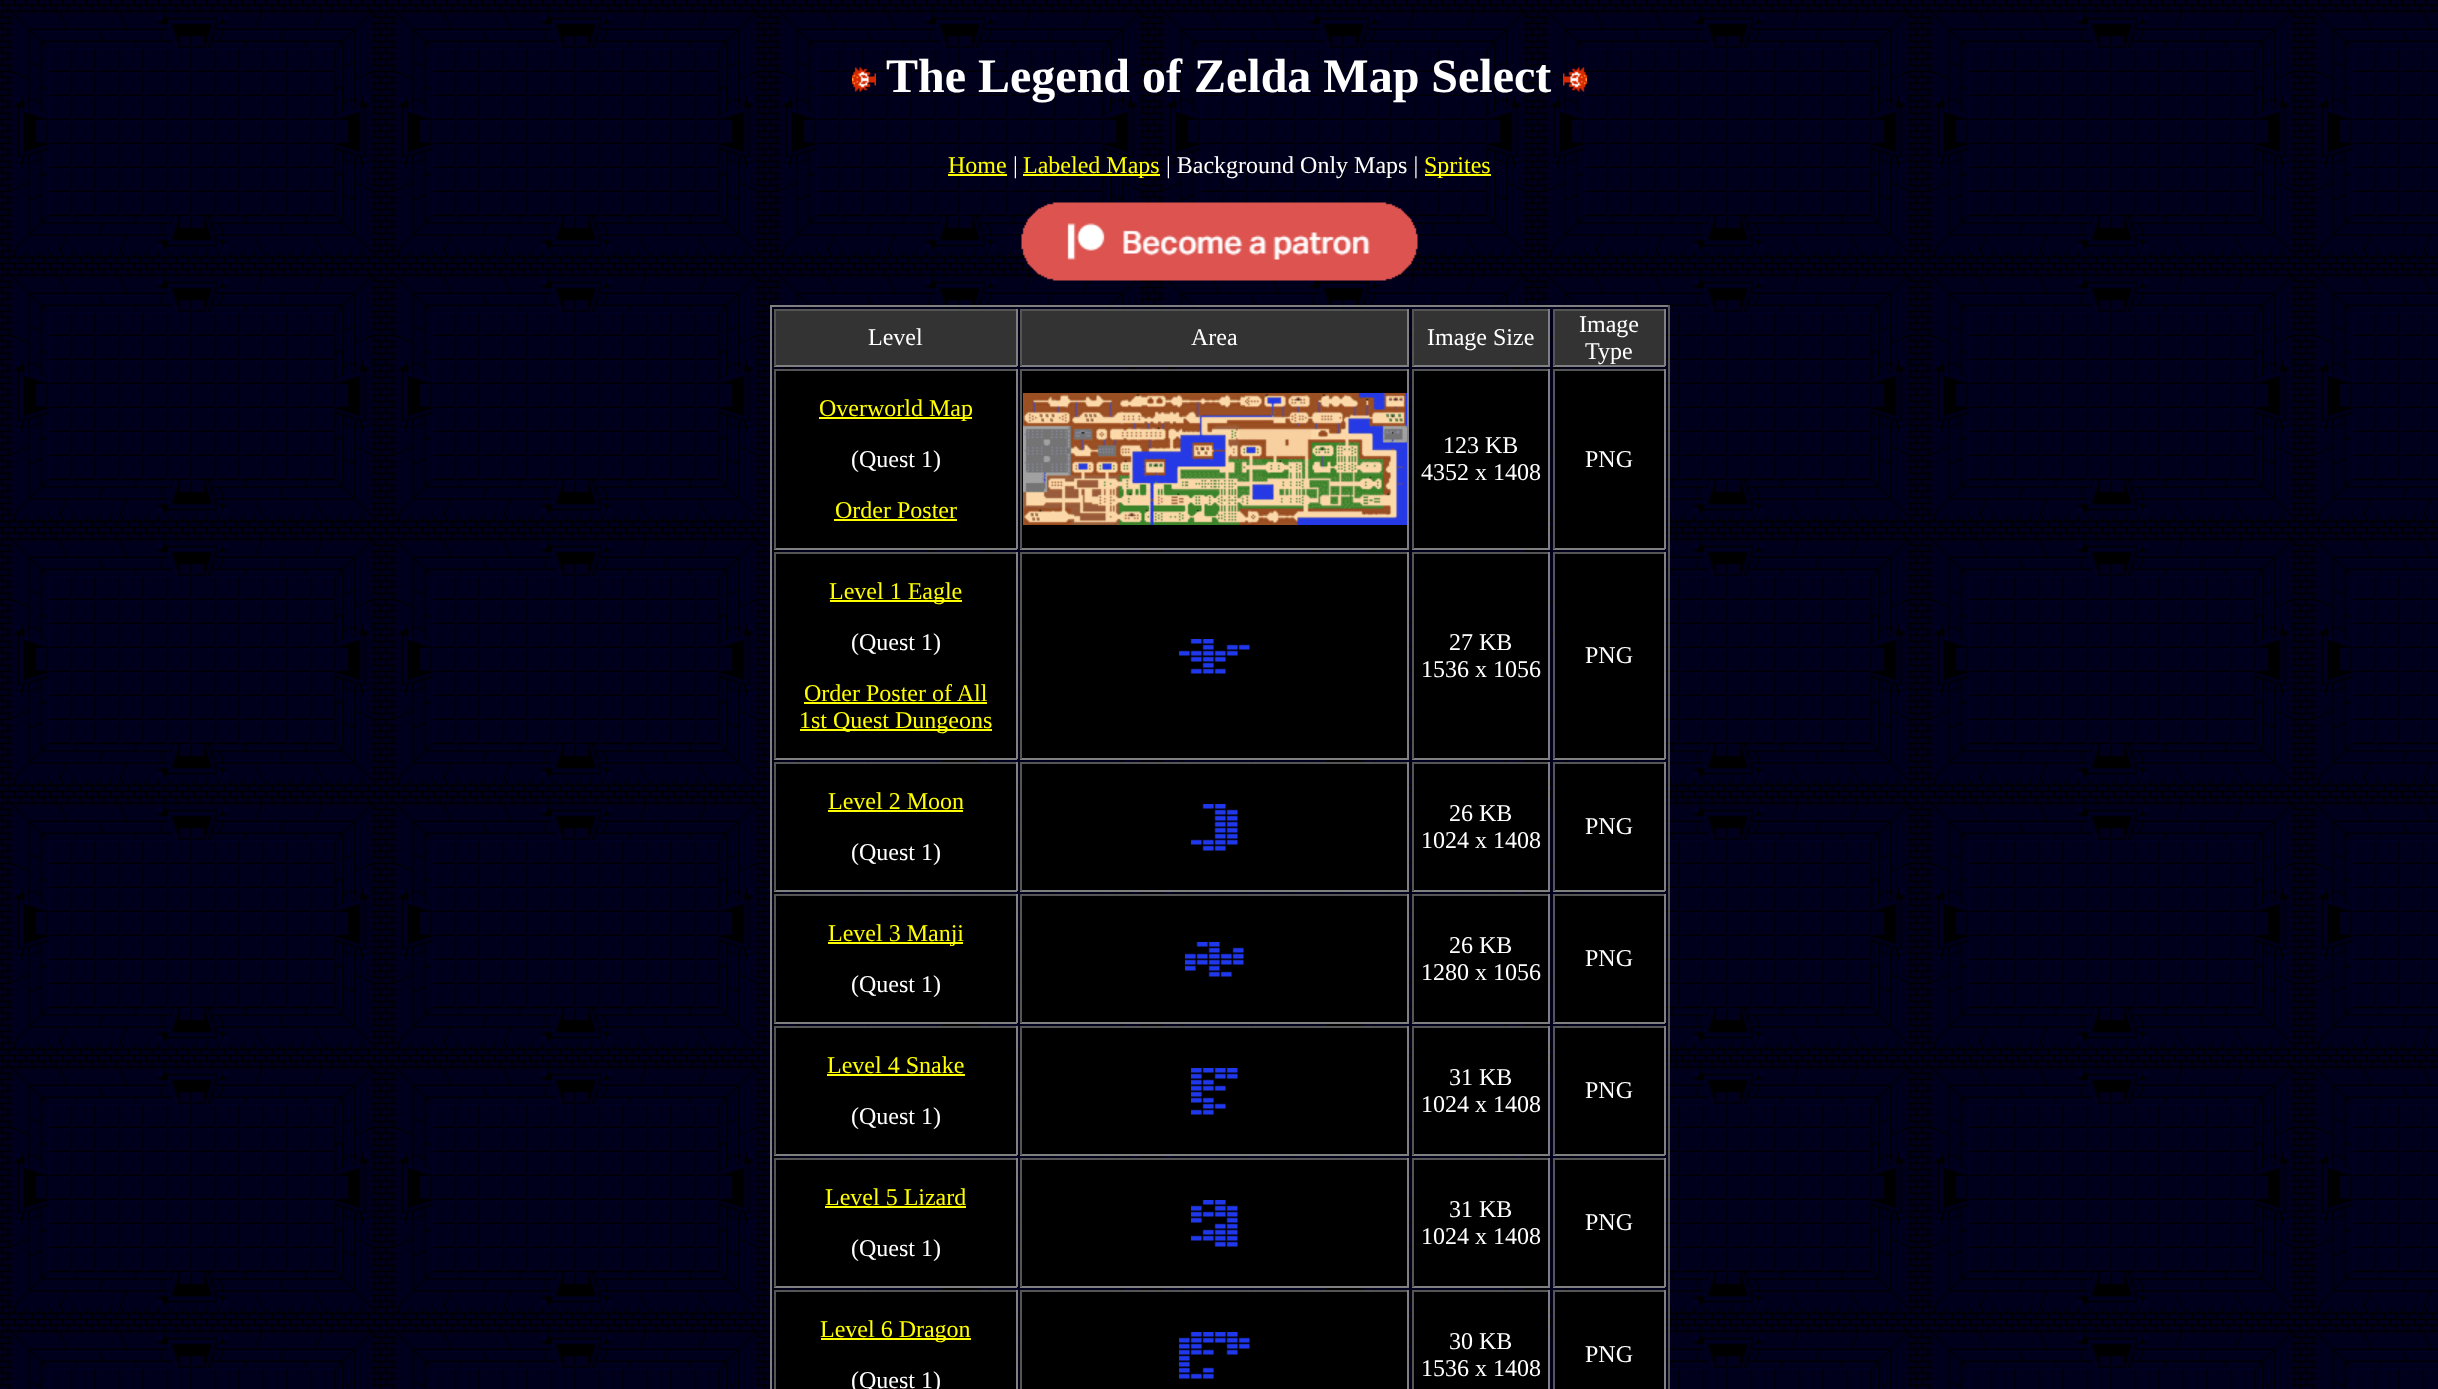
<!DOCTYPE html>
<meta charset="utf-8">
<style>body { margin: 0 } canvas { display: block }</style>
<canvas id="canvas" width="2438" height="1389"></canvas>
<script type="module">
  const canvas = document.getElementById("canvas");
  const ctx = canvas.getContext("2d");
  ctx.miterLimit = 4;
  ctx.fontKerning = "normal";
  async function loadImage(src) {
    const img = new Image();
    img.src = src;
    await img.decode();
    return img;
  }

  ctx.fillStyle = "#ffffff";
  ctx.fillRect(0, 0, 2438, 1389);
  ctx.drawImage(await loadImage("img1.png"), 0, 0, 2438, 1389);
  ctx.drawImage(await loadImage("img2.png"), 852, 67, 24, 25);
  ctx.font = "bold 48px Liberation Serif";
  ctx.fillText("The Legend of Zelda Map Select", 886, 92);
  ctx.drawImage(await loadImage("img3.png"), 1563, 67, 24, 25);
  ctx.font = "24px Liberation Serif";
  ctx.fillStyle = "#ffff00";
  ctx.fillText("Home", 948, 173);
  ctx.fillRect(948, 174, 59, 2);
  ctx.fillStyle = "#ffffff";
  ctx.fillText("|", 1013, 173);
  ctx.fillStyle = "#ffff00";
  ctx.fillRect(1023, 174, 137, 2);
  ctx.fillText("Labeled Maps", 1023, 173);
  ctx.fillStyle = "#ffffff";
  ctx.fillText("| Background Only Maps |", 1166, 173);
  ctx.fillStyle = "#ffff00";
  ctx.fillRect(1425, 174, 66, 2);
  ctx.fillText("Sprites", 1424, 173);
  ctx.drawImage(await loadImage("img4.png"), 1021, 202, 397, 79);
  ctx.fillStyle = "#808080";
  ctx.fillRect(770, 305, 900, 2);
  ctx.fillStyle = "#555555";
  ctx.fillRect(1668, 305, 2, 1084);
  ctx.fillStyle = "#808080";
  ctx.fillRect(770, 305, 2, 1084);
  ctx.fillStyle = "#333333";
  ctx.fillRect(776, 311, 240, 54);
  ctx.fillStyle = "#555555";
  ctx.fillRect(774, 309, 243, 2);
  ctx.fillStyle = "#808080";
  ctx.fillRect(1016, 309, 2, 57);
  ctx.fillRect(774, 365, 243, 2);
  ctx.fillStyle = "#555555";
  ctx.fillRect(774, 309, 2, 57);
  ctx.fillStyle = "#ffffff";
  ctx.fillText("Level", 868, 345);
  ctx.fillStyle = "#333333";
  ctx.fillRect(1022, 311, 385, 54);
  ctx.fillStyle = "#555555";
  ctx.fillRect(1020, 309, 389, 2);
  ctx.fillStyle = "#808080";
  ctx.fillRect(1407, 309, 2, 57);
  ctx.fillRect(1020, 365, 389, 2);
  ctx.fillStyle = "#555555";
  ctx.fillRect(1020, 309, 2, 57);
  ctx.fillStyle = "#ffffff";
  ctx.fillText("Area", 1191, 345);
  ctx.fillStyle = "#333333";
  ctx.fillRect(1414, 311, 134, 54);
  ctx.fillStyle = "#555555";
  ctx.fillRect(1412, 309, 138, 2);
  ctx.fillStyle = "#808080";
  ctx.fillRect(1548, 309, 2, 57);
  ctx.fillRect(1412, 365, 138, 2);
  ctx.fillStyle = "#555555";
  ctx.fillRect(1412, 309, 2, 57);
  ctx.fillStyle = "#ffffff";
  ctx.fillText("Image Size", 1427, 345);
  ctx.fillStyle = "#333333";
  ctx.fillRect(1555, 311, 109, 54);
  ctx.fillStyle = "#555555";
  ctx.fillRect(1553, 309, 112, 2);
  ctx.fillStyle = "#808080";
  ctx.fillRect(1664, 309, 2, 57);
  ctx.fillRect(1553, 365, 112, 2);
  ctx.fillStyle = "#555555";
  ctx.fillRect(1553, 309, 2, 57);
  ctx.fillStyle = "#ffffff";
  ctx.fillText("Image", 1579, 332);
  ctx.fillText("Type", 1585, 359);
  ctx.fillStyle = "#000000";
  ctx.fillRect(776, 371, 240, 177);
  ctx.fillStyle = "#555555";
  ctx.fillRect(774, 369, 243, 2);
  ctx.fillStyle = "#808080";
  ctx.fillRect(1016, 369, 2, 180);
  ctx.fillRect(774, 548, 243, 2);
  ctx.fillStyle = "#555555";
  ctx.fillRect(774, 369, 2, 180);
  ctx.fillStyle = "#ffff00";
  ctx.fillRect(819, 417, 153, 2);
  ctx.fillText("Overworld Map", 819, 416);
  ctx.fillStyle = "#ffffff";
  ctx.fillText("(Quest 1)", 851, 467);
  ctx.fillStyle = "#ffff00";
  ctx.fillText("Order Poster", 835, 518);
  ctx.fillRect(834, 519, 123, 2);
  ctx.fillStyle = "#000000";
  ctx.fillRect(1022, 371, 385, 177);
  ctx.fillStyle = "#555555";
  ctx.fillRect(1020, 369, 389, 2);
  ctx.fillStyle = "#808080";
  ctx.fillRect(1407, 369, 2, 180);
  ctx.fillRect(1020, 548, 389, 2);
  ctx.fillStyle = "#555555";
  ctx.fillRect(1020, 369, 2, 180);
  ctx.drawImage(await loadImage("img5.png"), 1023, 393, 384, 132);
  ctx.fillStyle = "#000000";
  ctx.fillRect(1414, 371, 134, 177);
  ctx.fillStyle = "#555555";
  ctx.fillRect(1412, 369, 138, 2);
  ctx.fillStyle = "#808080";
  ctx.fillRect(1548, 369, 2, 180);
  ctx.fillRect(1412, 548, 138, 2);
  ctx.fillStyle = "#555555";
  ctx.fillRect(1412, 369, 2, 180);
  ctx.fillStyle = "#ffffff";
  ctx.fillText("123 KB", 1443, 453);
  ctx.fillText("4352 x 1408", 1421, 480);
  ctx.fillStyle = "#000000";
  ctx.fillRect(1555, 371, 109, 177);
  ctx.fillStyle = "#555555";
  ctx.fillRect(1553, 369, 112, 2);
  ctx.fillStyle = "#808080";
  ctx.fillRect(1664, 369, 2, 180);
  ctx.fillRect(1553, 548, 112, 2);
  ctx.fillStyle = "#555555";
  ctx.fillRect(1553, 369, 2, 180);
  ctx.fillStyle = "#ffffff";
  ctx.fillText("PNG", 1585, 467);
  ctx.fillStyle = "#000000";
  ctx.fillRect(776, 554, 240, 204);
  ctx.fillStyle = "#555555";
  ctx.fillRect(774, 552, 243, 2);
  ctx.fillStyle = "#808080";
  ctx.fillRect(1016, 552, 2, 207);
  ctx.fillRect(774, 758, 243, 2);
  ctx.fillStyle = "#555555";
  ctx.fillRect(774, 552, 2, 207);
  ctx.fillStyle = "#ffff00";
  ctx.fillRect(830, 600, 132, 2);
  ctx.fillText("Level 1 Eagle", 829, 599);
  ctx.fillStyle = "#ffffff";
  ctx.fillText("(Quest 1)", 851, 650);
  ctx.fillStyle = "#ffff00";
  ctx.fillText("Order Poster of All", 804, 701);
  ctx.fillRect(804, 702, 183, 2);
  ctx.fillRect(800, 729, 192, 2);
  ctx.fillText("1st Quest Dungeons", 799, 728);
  ctx.fillStyle = "#000000";
  ctx.fillRect(1022, 554, 385, 204);
  ctx.fillStyle = "#555555";
  ctx.fillRect(1020, 552, 389, 2);
  ctx.fillStyle = "#808080";
  ctx.fillRect(1407, 552, 2, 207);
  ctx.fillRect(1020, 758, 389, 2);
  ctx.fillStyle = "#555555";
  ctx.fillRect(1020, 552, 2, 207);
  ctx.drawImage(await loadImage("img6.png"), 1179, 639, 71, 35);
  ctx.fillStyle = "#000000";
  ctx.fillRect(1414, 554, 134, 204);
  ctx.fillStyle = "#555555";
  ctx.fillRect(1412, 552, 138, 2);
  ctx.fillStyle = "#808080";
  ctx.fillRect(1548, 552, 2, 207);
  ctx.fillRect(1412, 758, 138, 2);
  ctx.fillStyle = "#555555";
  ctx.fillRect(1412, 552, 2, 207);
  ctx.fillStyle = "#ffffff";
  ctx.fillText("27 KB", 1449, 650);
  ctx.fillText("1536 x 1056", 1421, 677);
  ctx.fillStyle = "#000000";
  ctx.fillRect(1555, 554, 109, 204);
  ctx.fillStyle = "#555555";
  ctx.fillRect(1553, 552, 112, 2);
  ctx.fillStyle = "#808080";
  ctx.fillRect(1664, 552, 2, 207);
  ctx.fillRect(1553, 758, 112, 2);
  ctx.fillStyle = "#555555";
  ctx.fillRect(1553, 552, 2, 207);
  ctx.fillStyle = "#ffffff";
  ctx.fillText("PNG", 1585, 663);
  ctx.fillStyle = "#000000";
  ctx.fillRect(776, 764, 240, 126);
  ctx.fillStyle = "#555555";
  ctx.fillRect(774, 762, 243, 2);
  ctx.fillStyle = "#808080";
  ctx.fillRect(1016, 762, 2, 129);
  ctx.fillRect(774, 890, 243, 2);
  ctx.fillStyle = "#555555";
  ctx.fillRect(774, 762, 2, 129);
  ctx.fillStyle = "#ffff00";
  ctx.fillText("Level 2 Moon", 828, 809);
  ctx.fillRect(828, 810, 135, 2);
  ctx.fillStyle = "#ffffff";
  ctx.fillText("(Quest 1)", 851, 860);
  ctx.fillStyle = "#000000";
  ctx.fillRect(1022, 764, 385, 126);
  ctx.fillStyle = "#555555";
  ctx.fillRect(1020, 762, 389, 2);
  ctx.fillStyle = "#808080";
  ctx.fillRect(1407, 762, 2, 129);
  ctx.fillRect(1020, 890, 389, 2);
  ctx.fillStyle = "#555555";
  ctx.fillRect(1020, 762, 2, 129);
  ctx.drawImage(await loadImage("img7.png"), 1191, 804, 47, 47);
  ctx.fillStyle = "#000000";
  ctx.fillRect(1414, 764, 134, 126);
  ctx.fillStyle = "#555555";
  ctx.fillRect(1412, 762, 138, 2);
  ctx.fillStyle = "#808080";
  ctx.fillRect(1548, 762, 2, 129);
  ctx.fillRect(1412, 890, 138, 2);
  ctx.fillStyle = "#555555";
  ctx.fillRect(1412, 762, 2, 129);
  ctx.fillStyle = "#ffffff";
  ctx.fillText("26 KB", 1449, 821);
  ctx.fillText("1024 x 1408", 1421, 848);
  ctx.fillStyle = "#000000";
  ctx.fillRect(1555, 764, 109, 126);
  ctx.fillStyle = "#555555";
  ctx.fillRect(1553, 762, 112, 2);
  ctx.fillStyle = "#808080";
  ctx.fillRect(1664, 762, 2, 129);
  ctx.fillRect(1553, 890, 112, 2);
  ctx.fillStyle = "#555555";
  ctx.fillRect(1553, 762, 2, 129);
  ctx.fillStyle = "#ffffff";
  ctx.fillText("PNG", 1585, 834);
  ctx.fillStyle = "#000000";
  ctx.fillRect(776, 896, 240, 126);
  ctx.fillStyle = "#555555";
  ctx.fillRect(774, 894, 243, 2);
  ctx.fillStyle = "#808080";
  ctx.fillRect(1016, 894, 2, 129);
  ctx.fillRect(774, 1022, 243, 2);
  ctx.fillStyle = "#555555";
  ctx.fillRect(774, 894, 2, 129);
  ctx.fillStyle = "#ffff00";
  ctx.fillRect(828, 942, 135, 2);
  ctx.fillText("Level 3 Manji", 828, 941);
  ctx.fillStyle = "#ffffff";
  ctx.fillText("(Quest 1)", 851, 992);
  ctx.fillStyle = "#000000";
  ctx.fillRect(1022, 896, 385, 126);
  ctx.fillStyle = "#555555";
  ctx.fillRect(1020, 894, 389, 2);
  ctx.fillStyle = "#808080";
  ctx.fillRect(1407, 894, 2, 129);
  ctx.fillRect(1020, 1022, 389, 2);
  ctx.fillStyle = "#555555";
  ctx.fillRect(1020, 894, 2, 129);
  ctx.drawImage(await loadImage("img8.png"), 1185, 942, 59, 35);
  ctx.fillStyle = "#000000";
  ctx.fillRect(1414, 896, 134, 126);
  ctx.fillStyle = "#555555";
  ctx.fillRect(1412, 894, 138, 2);
  ctx.fillStyle = "#808080";
  ctx.fillRect(1548, 894, 2, 129);
  ctx.fillRect(1412, 1022, 138, 2);
  ctx.fillStyle = "#555555";
  ctx.fillRect(1412, 894, 2, 129);
  ctx.fillStyle = "#ffffff";
  ctx.fillText("26 KB", 1449, 953);
  ctx.fillText("1280 x 1056", 1421, 980);
  ctx.fillStyle = "#000000";
  ctx.fillRect(1555, 896, 109, 126);
  ctx.fillStyle = "#555555";
  ctx.fillRect(1553, 894, 112, 2);
  ctx.fillStyle = "#808080";
  ctx.fillRect(1664, 894, 2, 129);
  ctx.fillRect(1553, 1022, 112, 2);
  ctx.fillStyle = "#555555";
  ctx.fillRect(1553, 894, 2, 129);
  ctx.fillStyle = "#ffffff";
  ctx.fillText("PNG", 1585, 966);
  ctx.fillStyle = "#000000";
  ctx.fillRect(776, 1028, 240, 126);
  ctx.fillStyle = "#555555";
  ctx.fillRect(774, 1026, 243, 2);
  ctx.fillStyle = "#808080";
  ctx.fillRect(1016, 1026, 2, 129);
  ctx.fillRect(774, 1154, 243, 2);
  ctx.fillStyle = "#555555";
  ctx.fillRect(774, 1026, 2, 129);
  ctx.fillStyle = "#ffff00";
  ctx.fillText("Level 4 Snake", 827, 1073);
  ctx.fillRect(827, 1074, 138, 2);
  ctx.fillStyle = "#ffffff";
  ctx.fillText("(Quest 1)", 851, 1124);
  ctx.fillStyle = "#000000";
  ctx.fillRect(1022, 1028, 385, 126);
  ctx.fillStyle = "#555555";
  ctx.fillRect(1020, 1026, 389, 2);
  ctx.fillStyle = "#808080";
  ctx.fillRect(1407, 1026, 2, 129);
  ctx.fillRect(1020, 1154, 389, 2);
  ctx.fillStyle = "#555555";
  ctx.fillRect(1020, 1026, 2, 129);
  ctx.drawImage(await loadImage("img9.png"), 1191, 1068, 47, 47);
  ctx.fillStyle = "#000000";
  ctx.fillRect(1414, 1028, 134, 126);
  ctx.fillStyle = "#555555";
  ctx.fillRect(1412, 1026, 138, 2);
  ctx.fillStyle = "#808080";
  ctx.fillRect(1548, 1026, 2, 129);
  ctx.fillRect(1412, 1154, 138, 2);
  ctx.fillStyle = "#555555";
  ctx.fillRect(1412, 1026, 2, 129);
  ctx.fillStyle = "#ffffff";
  ctx.fillText("31 KB", 1449, 1085);
  ctx.fillText("1024 x 1408", 1421, 1112);
  ctx.fillStyle = "#000000";
  ctx.fillRect(1555, 1028, 109, 126);
  ctx.fillStyle = "#555555";
  ctx.fillRect(1553, 1026, 112, 2);
  ctx.fillStyle = "#808080";
  ctx.fillRect(1664, 1026, 2, 129);
  ctx.fillRect(1553, 1154, 112, 2);
  ctx.fillStyle = "#555555";
  ctx.fillRect(1553, 1026, 2, 129);
  ctx.fillStyle = "#ffffff";
  ctx.fillText("PNG", 1585, 1098);
  ctx.fillStyle = "#000000";
  ctx.fillRect(776, 1160, 240, 126);
  ctx.fillStyle = "#555555";
  ctx.fillRect(774, 1158, 243, 2);
  ctx.fillStyle = "#808080";
  ctx.fillRect(1016, 1158, 2, 129);
  ctx.fillRect(774, 1286, 243, 2);
  ctx.fillStyle = "#555555";
  ctx.fillRect(774, 1158, 2, 129);
  ctx.fillStyle = "#ffff00";
  ctx.fillText("Level 5 Lizard", 825, 1205);
  ctx.fillRect(825, 1206, 141, 2);
  ctx.fillStyle = "#ffffff";
  ctx.fillText("(Quest 1)", 851, 1256);
  ctx.fillStyle = "#000000";
  ctx.fillRect(1022, 1160, 385, 126);
  ctx.fillStyle = "#555555";
  ctx.fillRect(1020, 1158, 389, 2);
  ctx.fillStyle = "#808080";
  ctx.fillRect(1407, 1158, 2, 129);
  ctx.fillRect(1020, 1286, 389, 2);
  ctx.fillStyle = "#555555";
  ctx.fillRect(1020, 1158, 2, 129);
  ctx.drawImage(await loadImage("img10.png"), 1191, 1200, 47, 47);
  ctx.fillStyle = "#000000";
  ctx.fillRect(1414, 1160, 134, 126);
  ctx.fillStyle = "#555555";
  ctx.fillRect(1412, 1158, 138, 2);
  ctx.fillStyle = "#808080";
  ctx.fillRect(1548, 1158, 2, 129);
  ctx.fillRect(1412, 1286, 138, 2);
  ctx.fillStyle = "#555555";
  ctx.fillRect(1412, 1158, 2, 129);
  ctx.fillStyle = "#ffffff";
  ctx.fillText("31 KB", 1449, 1217);
  ctx.fillText("1024 x 1408", 1421, 1244);
  ctx.fillStyle = "#000000";
  ctx.fillRect(1555, 1160, 109, 126);
  ctx.fillStyle = "#555555";
  ctx.fillRect(1553, 1158, 112, 2);
  ctx.fillStyle = "#808080";
  ctx.fillRect(1664, 1158, 2, 129);
  ctx.fillRect(1553, 1286, 112, 2);
  ctx.fillStyle = "#555555";
  ctx.fillRect(1553, 1158, 2, 129);
  ctx.fillStyle = "#ffffff";
  ctx.fillText("PNG", 1585, 1230);
  ctx.fillStyle = "#000000";
  ctx.fillRect(776, 1292, 240, 97);
  ctx.fillStyle = "#555555";
  ctx.fillRect(774, 1290, 243, 2);
  ctx.fillStyle = "#808080";
  ctx.fillRect(1016, 1290, 2, 99);
  ctx.fillStyle = "#555555";
  ctx.fillRect(774, 1290, 2, 99);
  ctx.fillStyle = "#ffff00";
  ctx.fillRect(821, 1338, 150, 2);
  ctx.fillText("Level 6 Dragon", 820, 1337);
  ctx.fillStyle = "#ffffff";
  ctx.fillText("(Quest 1)", 851, 1388);
  ctx.fillStyle = "#000000";
  ctx.fillRect(1022, 1292, 385, 97);
  ctx.fillStyle = "#555555";
  ctx.fillRect(1020, 1290, 389, 2);
  ctx.fillStyle = "#808080";
  ctx.fillRect(1407, 1290, 2, 99);
  ctx.fillStyle = "#555555";
  ctx.fillRect(1020, 1290, 2, 99);
  ctx.drawImage(await loadImage("img11.png"), 1179, 1332, 71, 47);
  ctx.fillStyle = "#000000";
  ctx.fillRect(1414, 1292, 134, 97);
  ctx.fillStyle = "#555555";
  ctx.fillRect(1412, 1290, 138, 2);
  ctx.fillStyle = "#808080";
  ctx.fillRect(1548, 1290, 2, 99);
  ctx.fillStyle = "#555555";
  ctx.fillRect(1412, 1290, 2, 99);
  ctx.fillStyle = "#ffffff";
  ctx.fillText("30 KB", 1449, 1349);
  ctx.fillText("1536 x 1408", 1421, 1376);
  ctx.fillStyle = "#000000";
  ctx.fillRect(1555, 1292, 109, 97);
  ctx.fillStyle = "#555555";
  ctx.fillRect(1553, 1290, 112, 2);
  ctx.fillStyle = "#808080";
  ctx.fillRect(1664, 1290, 2, 99);
  ctx.fillStyle = "#555555";
  ctx.fillRect(1553, 1290, 2, 99);
  ctx.fillStyle = "#ffffff";
  ctx.fillText("PNG", 1585, 1362);
</script>
